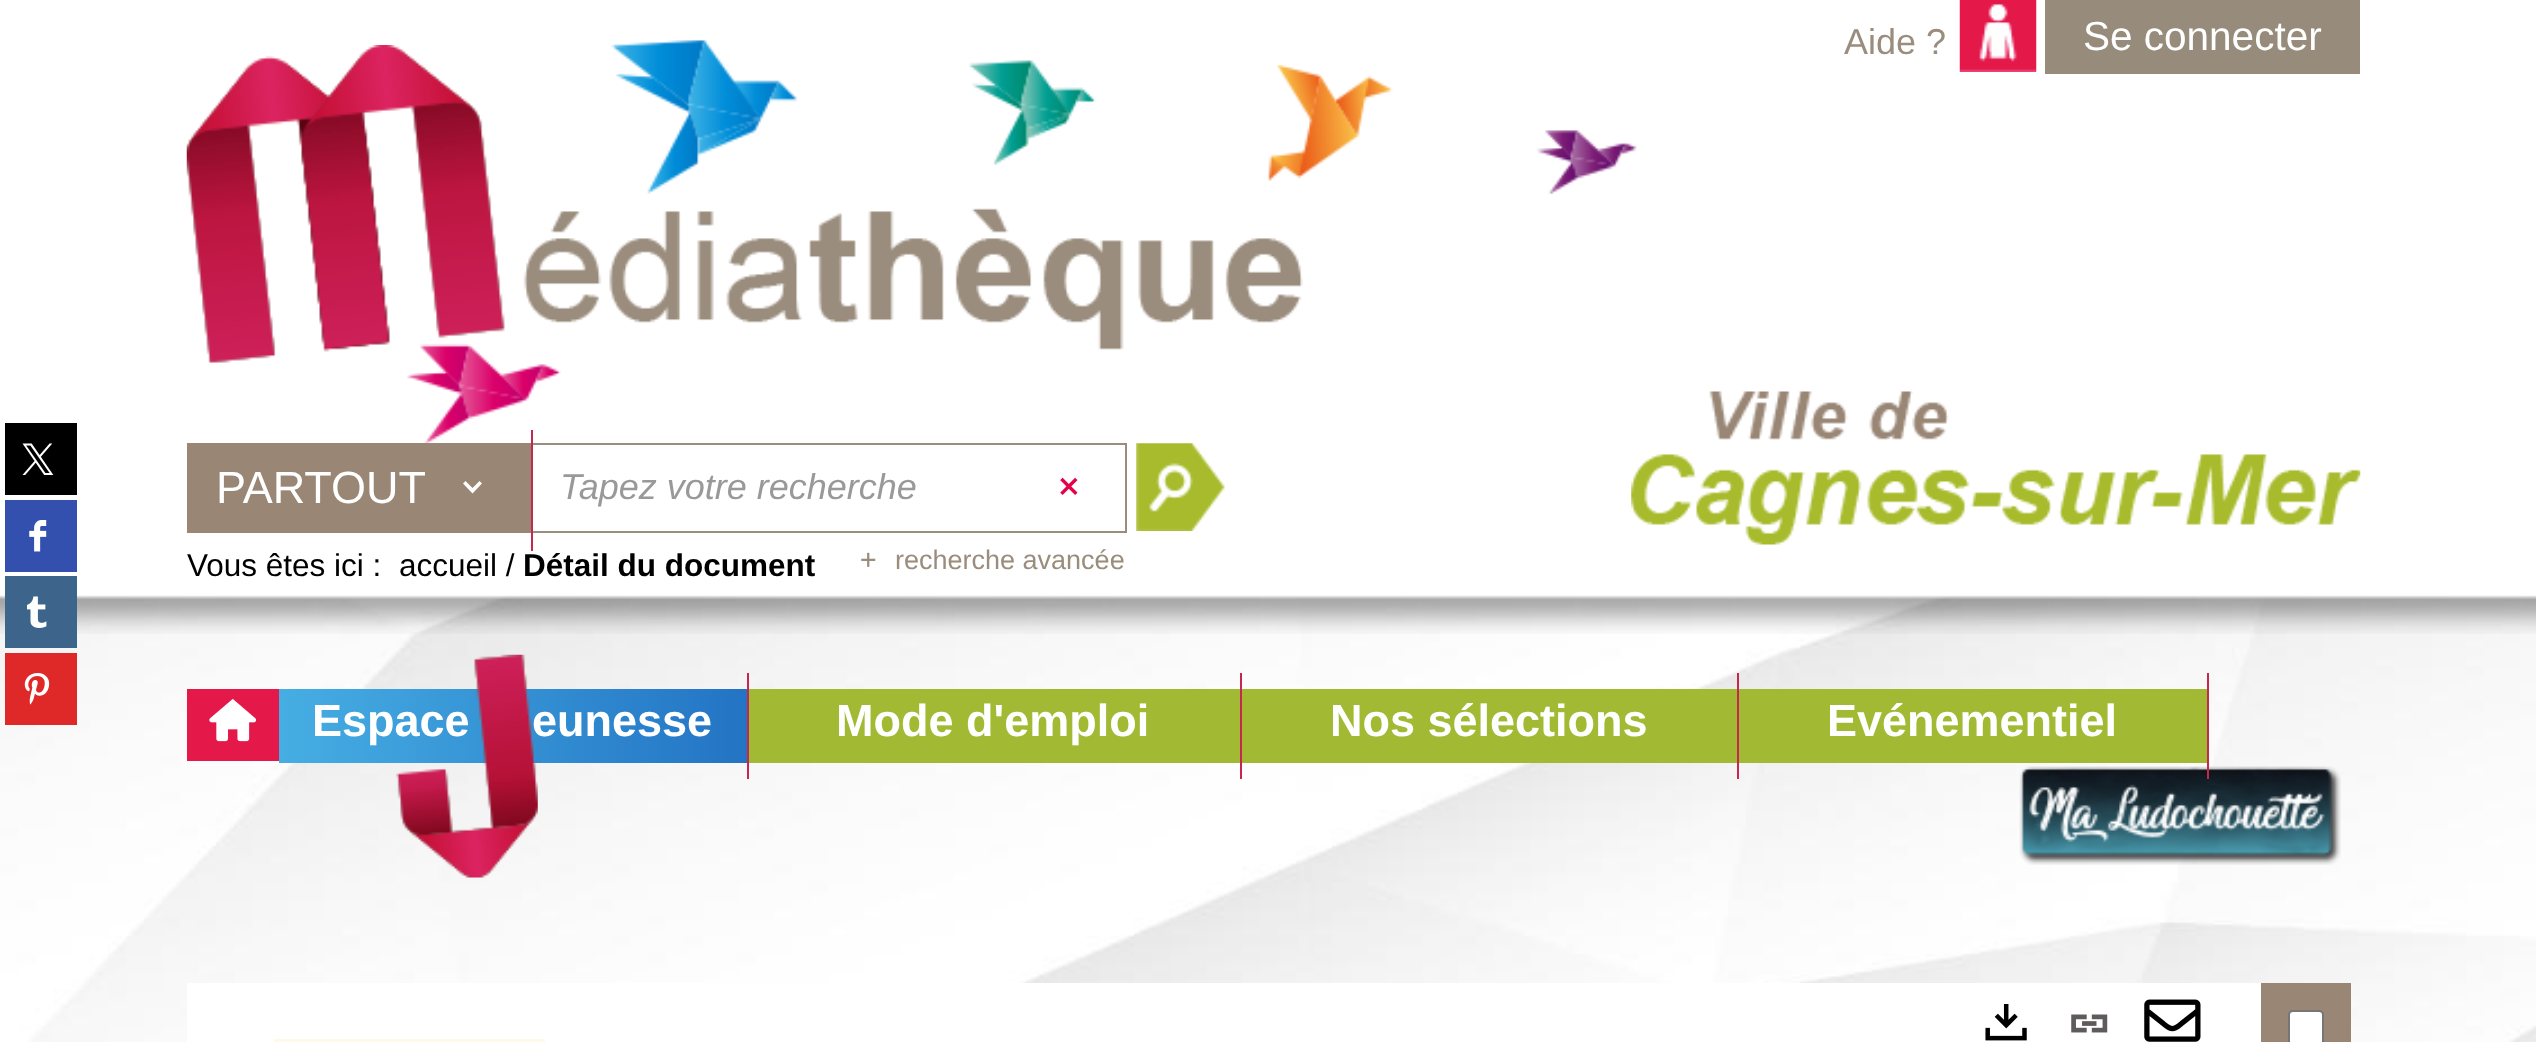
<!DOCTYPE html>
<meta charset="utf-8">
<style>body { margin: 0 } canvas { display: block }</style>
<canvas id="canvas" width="2536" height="1042"></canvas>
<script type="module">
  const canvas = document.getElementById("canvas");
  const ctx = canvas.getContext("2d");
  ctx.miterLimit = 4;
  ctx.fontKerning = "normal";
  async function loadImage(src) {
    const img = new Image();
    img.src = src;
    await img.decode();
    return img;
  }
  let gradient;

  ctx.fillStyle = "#ffffff";
  ctx.fillRect(0, 0, 2536, 1042);
  ctx.drawImage(await loadImage("img1.png"), 0, 595, 2536, 447);
  ctx.drawImage(await loadImage("img2.png"), 0, 0, 2536, 634);
  ctx.drawImage(await loadImage("img3.png"), 406, 40, 1231, 403);
  ctx.font = "36px Liberation Sans";
  ctx.fillStyle = "#9a8d7d";
  ctx.fillText("Aide ?", 1844, 54);
  ctx.fillStyle = "#978c7b";
  ctx.fillRect(2045, 0, 315, 74);
  ctx.drawImage(await loadImage("img4.png"), 1959, 0, 78, 72);
  ctx.font = "40.5px Liberation Sans";
  ctx.fillStyle = "#ffffff";
  ctx.fillText("Se connecter", 2083, 50);
  ctx.drawImage(await loadImage("img5.png"), 186, 45, 1117, 319);
  ctx.drawImage(await loadImage("img6.png"), 1631, 391, 730, 154);
  ctx.fillStyle = "#998675";
  ctx.fillRect(187, 443, 344, 90);
  ctx.font = "45px Liberation Sans";
  ctx.fillStyle = "#ffffff";
  ctx.fillText("PARTOUT", 216, 503);
  ctx.beginPath();
  ctx.moveTo(472.5, 493.5);
  ctx.lineTo(463, 483.5);
  ctx.lineTo(465.5, 481);
  ctx.lineTo(472.5, 488);
  ctx.lineTo(479.5, 481);
  ctx.lineTo(482, 483.5);
  ctx.closePath();
  ctx.fill();
  ctx.fillStyle = "#9a8d7d";
  ctx.fillRect(531, 443, 596, 2);
  ctx.fillRect(531, 531, 493, 2);
  ctx.fillStyle = "#c7264e";
  ctx.fillRect(531, 430, 2, 121);
  ctx.font = "italic 36px Liberation Sans";
  ctx.fillStyle = "#999999";
  ctx.fillText("Tapez votre recherche", 560, 499);
  ctx.fillStyle = "#9a8d7d";
  ctx.fillRect(1125, 443, 2, 90);
  ctx.fillRect(1022, 531, 105, 2);
  ctx.drawImage(await loadImage("img7.png"), 1060, 477, 18, 18);
  ctx.drawImage(await loadImage("img8.png"), 1136, 443, 89, 88);
  ctx.drawImage(await loadImage("img9.png"), 861, 552, 15, 15);
  ctx.font = "27px Liberation Sans";
  ctx.fillText("recherche avancée", 895, 569);
  ctx.font = "31.5px Liberation Sans";
  ctx.fillStyle = "#000000";
  ctx.fillText("Vous êtes ici :", 187, 576);
  ctx.fillText("accueil /", 399, 576);
  ctx.font = "bold 31.5px Liberation Sans";
  ctx.fillText("Détail du document", 523, 576);
  ctx.fillStyle = "#e41949";
  ctx.fillRect(187, 689, 92, 72);
  ctx.drawImage(await loadImage("img10.png"), 209, 699, 48, 43);
  gradient = ctx.createLinearGradient(279, 726, 747, 726);
  gradient.addColorStop(0, "#46aee3");
  gradient.addColorStop(1, "#2374c4");
  ctx.fillStyle = gradient;
  ctx.fillRect(279, 689, 468, 74);
  ctx.font = "bold 45px Liberation Sans";
  ctx.fillStyle = "#ffffff";
  ctx.fillText("Espace", 312, 736);
  ctx.fillText("eunesse", 532, 736);
  ctx.drawImage(await loadImage("img11.png"), 396, 654, 142, 224);
  ctx.fillStyle = "#c7264e";
  ctx.fillRect(747, 673, 2, 106);
  ctx.fillStyle = "#a2ba33";
  ctx.fillRect(749, 689, 491, 74);
  ctx.fillStyle = "#ffffff";
  ctx.fillText("Mode d'emploi", 836, 736);
  ctx.fillStyle = "#c7264e";
  ctx.fillRect(1240, 673, 2, 106);
  ctx.fillStyle = "#a2ba33";
  ctx.fillRect(1242, 689, 495, 74);
  ctx.fillStyle = "#ffffff";
  ctx.fillText("Nos sélections", 1330, 736);
  ctx.fillStyle = "#c7264e";
  ctx.fillRect(1737, 673, 2, 106);
  ctx.fillStyle = "#a2ba33";
  ctx.fillRect(1739, 689, 468, 74);
  ctx.fillStyle = "#ffffff";
  ctx.fillText("Evénementiel", 1827, 736);
  ctx.drawImage(await loadImage("img12.png"), 2019, 766, 322, 99);
  ctx.fillStyle = "#c7264e";
  ctx.fillRect(2207, 673, 2, 106);
  ctx.fillStyle = "#000000";
  ctx.fillRect(5, 423, 72, 72);
  ctx.drawImage(await loadImage("img13.png"), 22, 443, 32, 32);
  ctx.fillStyle = "#3350ae";
  ctx.fillRect(5, 500, 72, 72);
  ctx.drawImage(await loadImage("img14.png"), 29, 520, 18, 32);
  ctx.fillStyle = "#3d658b";
  ctx.fillRect(5, 576, 72, 72);
  ctx.drawImage(await loadImage("img15.png"), 27, 596, 20, 32);
  ctx.fillStyle = "#df2828";
  ctx.fillRect(5, 653, 72, 72);
  ctx.drawImage(await loadImage("img16.png"), 24, 673, 26, 32);
  ctx.fillStyle = "#ffffff";
  ctx.fillRect(187, 983, 2074, 59);
  ctx.fillStyle = "#fff9ec";
  ctx.fillRect(274, 1039, 271, 3);
  ctx.drawImage(await loadImage("img17.png"), 1985, 1004, 42, 37);
  ctx.drawImage(await loadImage("img18.png"), 2071, 1014, 37, 19);
  ctx.drawImage(await loadImage("img19.png"), 2144, 999, 57, 43);
  ctx.fillStyle = "#998675";
  ctx.fillRect(2261, 983, 90, 59);
  ctx.fillStyle = "#ffffff";
  ctx.beginPath();
  ctx.roundRect(2289, 1011, 34, 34, 4);
  ctx.fill();
  ctx.strokeStyle = "#767676";
  ctx.lineWidth = 2;
  ctx.stroke();
</script>
